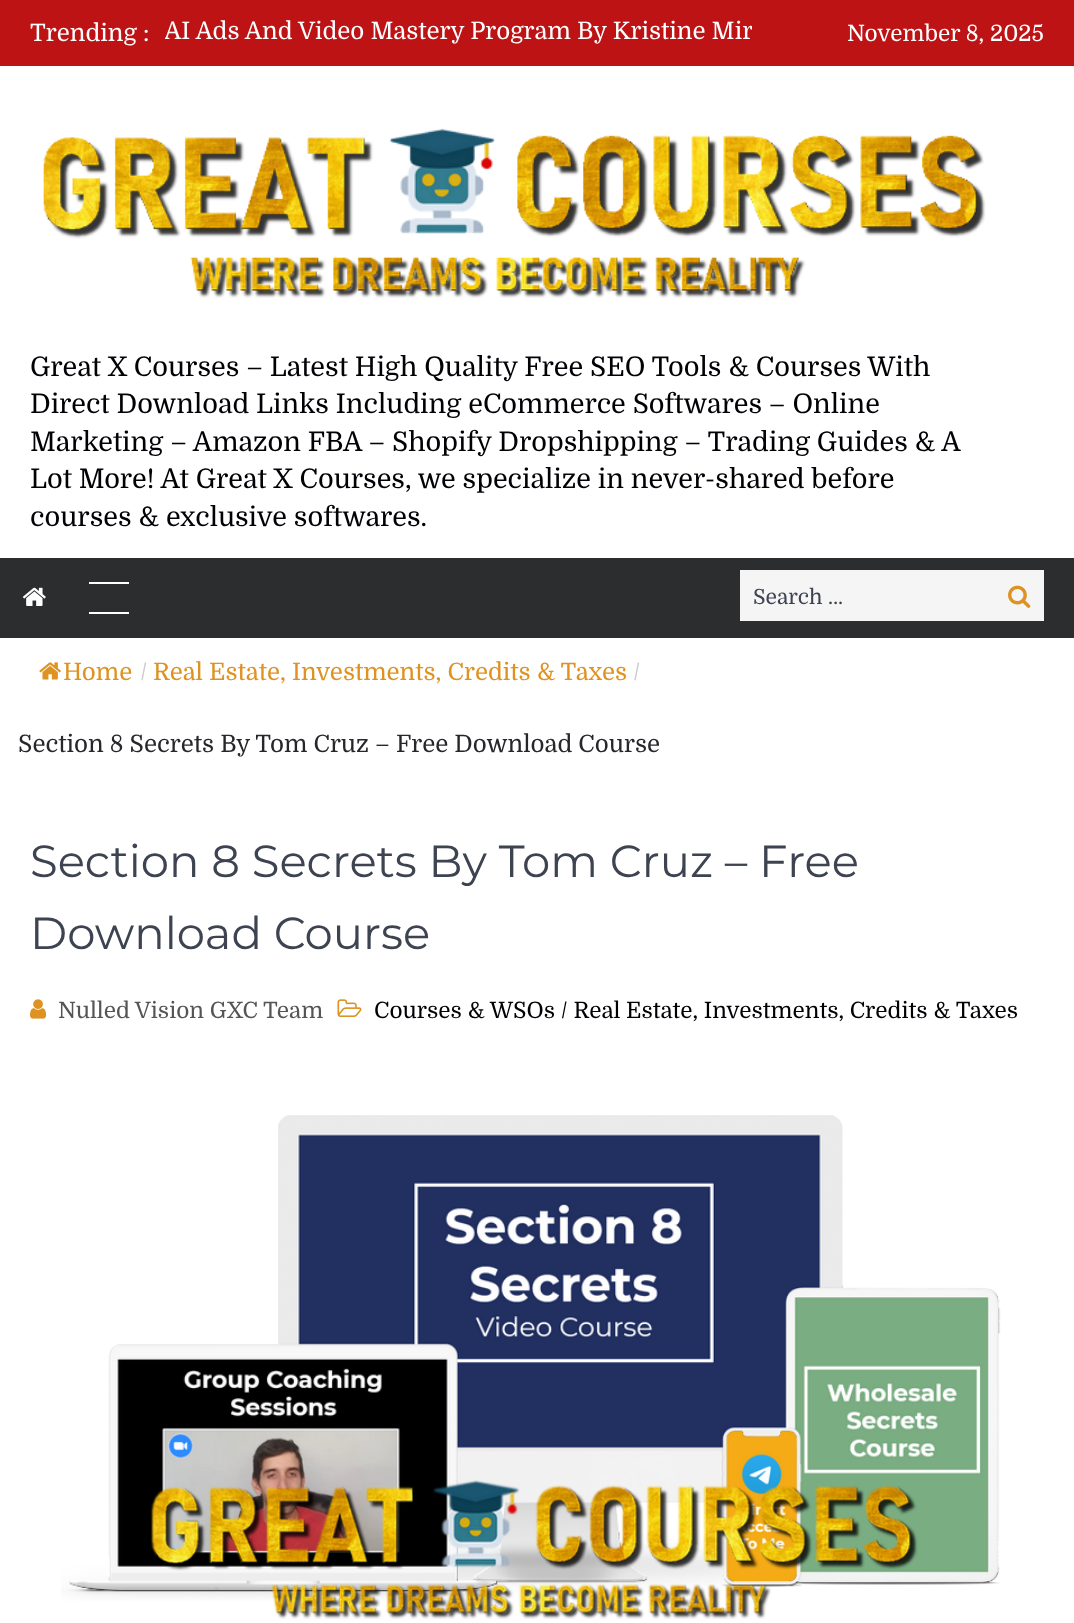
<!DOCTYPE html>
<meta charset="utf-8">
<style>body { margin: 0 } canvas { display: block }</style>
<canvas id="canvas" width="1074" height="1623"></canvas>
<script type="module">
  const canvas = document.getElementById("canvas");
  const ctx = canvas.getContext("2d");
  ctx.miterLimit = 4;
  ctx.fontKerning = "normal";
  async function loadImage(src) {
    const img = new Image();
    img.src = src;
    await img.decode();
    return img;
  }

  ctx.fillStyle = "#ffffff";
  ctx.fillRect(0, 0, 1074, 1623);
  ctx.fillStyle = "#bd1315";
  ctx.fillRect(0, 0, 1074, 66);
  ctx.font = "24px Domine";
  ctx.fillStyle = "#ffffff";
  ctx.fillText("Trending :", 30, 41);
  ctx.save();
  ctx.beginPath();
  ctx.rect(165, 15, 587, 33);
  ctx.clip();
  ctx.fillText("AI Ads And Video Mastery Program By Kristine Mir", 164, 39);
  ctx.restore();
  ctx.font = "22.5px Domine";
  ctx.fillText("November 8, 2025", 847, 41);
  ctx.drawImage(await loadImage("img1.png"), 43, 128, 943, 170);
  ctx.font = "27px Domine";
  ctx.fillStyle = "#000005";
  ctx.fillText("Great X Courses – Latest High Quality Free SEO Tools & Courses With", 30, 376);
  ctx.fillText("Direct Download Links Including eCommerce Softwares – Online", 30, 413);
  ctx.fillText("Marketing – Amazon FBA – Shopify Dropshipping – Trading Guides & A", 30, 451);
  ctx.fillText("Lot More! At Great X Courses, we specialize in never-shared before", 30, 488);
  ctx.fillText("courses & exclusive softwares.", 30, 526);
  ctx.fillStyle = "#2b2d2e";
  ctx.fillRect(0, 558, 1074, 80);
  ctx.drawImage(await loadImage("img2.png"), 22, 587, 24, 19);
  ctx.fillStyle = "#ffffff";
  ctx.fillRect(89, 582, 40, 2);
  ctx.fillRect(89, 612, 40, 2);
  ctx.fillStyle = "#f5f5f5";
  ctx.fillRect(740, 570, 304, 51);
  ctx.font = "21px Domine";
  ctx.fillStyle = "#3d4351";
  ctx.fillText("Search …", 753, 604);
  ctx.drawImage(await loadImage("img3.png"), 1008, 585, 23, 23);
  ctx.drawImage(await loadImage("img4.png"), 39, 662, 22, 18);
  ctx.font = "24px Domine";
  ctx.fillStyle = "#dd9221";
  ctx.fillText("Home", 63, 680);
  ctx.fillStyle = "#cccccc";
  ctx.fillText("/", 140, 680);
  ctx.fillStyle = "#dd9221";
  ctx.fillText("Real Estate, Investments, Credits & Taxes", 153, 680);
  ctx.fillStyle = "#cccccc";
  ctx.fillText("/", 633, 680);
  ctx.fillStyle = "#27272b";
  ctx.fillText("Section 8 Secrets By Tom Cruz – Free Download Course", 18, 752);
  ctx.font = "45px Montserrat";
  ctx.fillStyle = "#3d4351";
  ctx.fillText("Section 8 Secrets By Tom Cruz – Free", 30, 877);
  ctx.fillText("Download Course", 30, 949);
  ctx.drawImage(await loadImage("img5.png"), 30, 999, 17, 20);
  ctx.font = "22.5px Domine";
  ctx.fillStyle = "#555555";
  ctx.fillText("Nulled Vision GXC Team", 58, 1018);
  ctx.drawImage(await loadImage("img6.png"), 337, 999, 25, 18);
  ctx.fillStyle = "#000005";
  ctx.fillText("Courses & WSOs / Real Estate, Investments, Credits & Taxes", 374, 1018);
  ctx.drawImage(await loadImage("img7.png"), 61, 1115, 940, 504);
</script>
